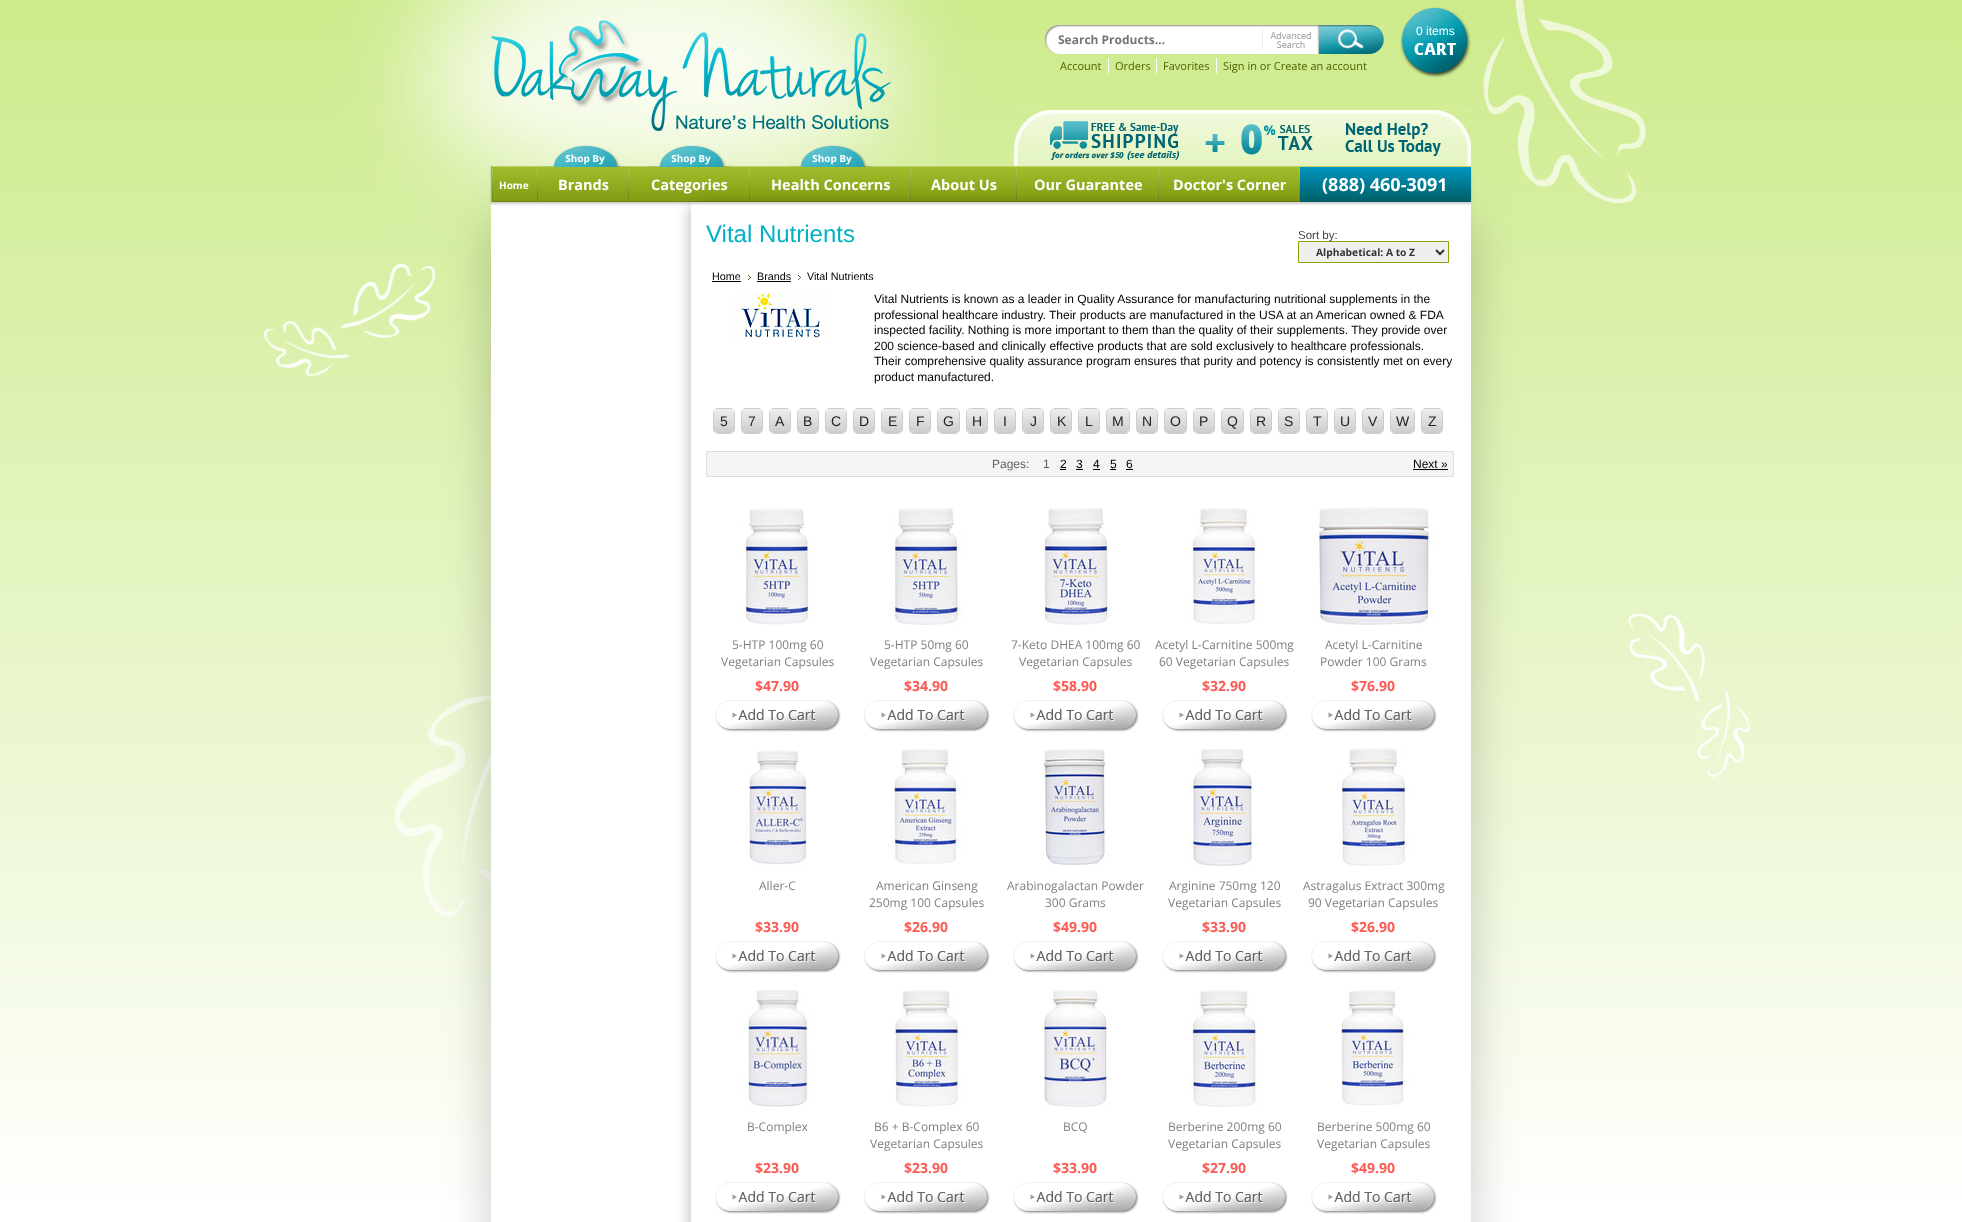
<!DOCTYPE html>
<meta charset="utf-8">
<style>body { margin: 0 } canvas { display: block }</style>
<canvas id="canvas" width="1962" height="1222"></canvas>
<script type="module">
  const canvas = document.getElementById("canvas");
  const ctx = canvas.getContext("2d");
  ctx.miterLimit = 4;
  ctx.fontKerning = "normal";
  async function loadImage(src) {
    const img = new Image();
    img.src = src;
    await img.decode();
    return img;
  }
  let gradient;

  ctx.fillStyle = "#ffffff";
  ctx.fillRect(0, 0, 1962, 1222);
  gradient = ctx.createLinearGradient(981, 0, 981, 1222);
  gradient.addColorStop(0, "#cdeb8b");
  gradient.addColorStop(1, "#ffffff");
  ctx.fillStyle = gradient;
  ctx.fillRect(0, 0, 1962, 1196);
  ctx.fillStyle = "rgba(255, 255, 255, 0.7)";
  ctx.filter = "blur(75px)";
  ctx.beginPath();
  ctx.rect(461, -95, 380, 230);
  ctx.fill();
  ctx.filter = "none";
  ctx.drawImage(await loadImage("img1.png"), 264, 0, 1486, 918);
  ctx.drawImage(await loadImage("img2.png"), 491, 20, 400, 111);
  ctx.drawImage(await loadImage("img3.png"), 1400, 7, 71, 71);
  ctx.font = "12px Liberation Sans";
  ctx.fillStyle = "#ffffff";
  ctx.fillText("0 items", 1416, 35);
  ctx.drawImage(await loadImage("img4.png"), 1045, 25, 339, 29);
  ctx.font = "bold 12px Open Sans";
  ctx.fillStyle = "#757575";
  ctx.fillText("Search Products…", 1058, 44);
  ctx.fillStyle = "#ffffff";
  ctx.fillRect(1108, 58, 1, 15);
  ctx.font = "11px Open Sans";
  ctx.fillStyle = "#506001";
  ctx.fillText("Account", 1060, 70);
  ctx.fillStyle = "#ffffff";
  ctx.fillRect(1156, 58, 1, 15);
  ctx.fillStyle = "#506001";
  ctx.fillText("Orders", 1115, 70);
  ctx.fillStyle = "#ffffff";
  ctx.fillRect(1216, 58, 1, 15);
  ctx.fillStyle = "#506001";
  ctx.fillText("Favorites", 1163, 70);
  ctx.fillText("Sign in or Create an account", 1223, 70);
  ctx.fillStyle = "rgba(0, 0, 0, 0.2)";
  ctx.filter = "blur(23.5px)";
  ctx.beginPath();
  ctx.rect(491, 222, 980, 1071);
  ctx.fill();
  ctx.filter = "none";
  ctx.fillStyle = "#ffffff";
  ctx.fillRect(491, 202, 980, 1020);
  ctx.fillStyle = "rgba(0, 0, 0, 0.2)";
  ctx.filter = "blur(1px)";
  ctx.beginPath();
  ctx.rect(491, 168, 980, 36);
  ctx.fill();
  ctx.filter = "none";
  ctx.drawImage(await loadImage("img5.png"), 1014, 110, 457, 56);
  ctx.drawImage(await loadImage("img6.png"), 1050, 121, 129, 39);
  ctx.drawImage(await loadImage("img7.png"), 1205, 123, 236, 33);
  gradient = ctx.createLinearGradient(982, 167, 982, 201);
  gradient.addColorStop(0, "#a1bc2b");
  gradient.addColorStop(1, "#839d14");
  ctx.fillStyle = gradient;
  ctx.fillRect(492, 167, 808, 34);
  ctx.fillStyle = "#bfd16e";
  ctx.fillRect(491, 166, 980, 1);
  ctx.fillStyle = "#718610";
  ctx.fillRect(491, 201, 808, 1);
  ctx.fillStyle = "#a1b643";
  ctx.fillRect(491, 166, 1, 36);
  ctx.drawImage(await loadImage("img8.png"), 492, 168, 1, 34);
  ctx.drawImage(await loadImage("img8.png"), 537, 168, 1, 34);
  ctx.font = "bold 10px Open Sans";
  ctx.fillStyle = "#ffffff";
  ctx.fillText("Home", 499, 189);
  ctx.drawImage(await loadImage("img8.png"), 628, 168, 1, 34);
  ctx.drawImage(await loadImage("img9.png"), 543, 145, 82, 22);
  ctx.font = "bold 14.5px Open Sans";
  ctx.fillText("Brands", 558, 190);
  ctx.save();
  ctx.beginPath();
  ctx.moveTo(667, 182);
  ctx.lineTo(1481, 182);
  ctx.lineTo(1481, 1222);
  ctx.lineTo(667, 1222);
  ctx.closePath();
  ctx.moveTo(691, 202);
  ctx.lineTo(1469, 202);
  ctx.lineTo(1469, 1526);
  ctx.lineTo(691, 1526);
  ctx.closePath();
  ctx.clip("evenodd");
  ctx.fillStyle = "rgba(0, 0, 0, 0.3)";
  ctx.filter = "blur(7.5px)";
  ctx.beginPath();
  ctx.rect(691, 206, 766, 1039);
  ctx.fill();
  ctx.filter = "none";
  ctx.restore();
  ctx.drawImage(await loadImage("img8.png"), 749, 168, 1, 34);
  ctx.drawImage(await loadImage("img10.png"), 649, 145, 82, 22);
  ctx.fillText("Categories", 651, 190);
  ctx.drawImage(await loadImage("img8.png"), 910, 168, 1, 34);
  ctx.drawImage(await loadImage("img11.png"), 790, 145, 82, 22);
  ctx.fillText("Health Concerns", 771, 190);
  ctx.drawImage(await loadImage("img8.png"), 1016, 168, 1, 34);
  ctx.fillText("About Us", 931, 190);
  ctx.drawImage(await loadImage("img8.png"), 1158, 168, 1, 34);
  ctx.fillText("Our Guarantee", 1034, 190);
  ctx.drawImage(await loadImage("img8.png"), 1299, 168, 1, 34);
  ctx.fillText("Doctor's Corner", 1173, 190);
  gradient = ctx.createLinearGradient(1386, 167, 1386, 202);
  gradient.addColorStop(0, "#0095bf");
  gradient.addColorStop(1, "#005f68");
  ctx.fillStyle = gradient;
  ctx.fillRect(1300, 167, 171, 35);
  ctx.font = "bold 18px Open Sans";
  ctx.fillStyle = "#ffffff";
  ctx.fillText("(888) 460-3091", 1322, 191);
  ctx.font = "24px Liberation Sans";
  ctx.fillStyle = "#01b1c6";
  ctx.fillText("Vital Nutrients", 706, 242);
  ctx.fillStyle = "#efefef";
  ctx.beginPath();
  ctx.rect(1298.5, 241.5, 150, 21);
  ctx.fill();
  ctx.strokeStyle = "#89a315";
  ctx.stroke();
  ctx.font = "11.5px Liberation Sans";
  ctx.fillStyle = "#444444";
  ctx.fillText("Sort by:", 1298, 239);
  ctx.beginPath();
  ctx.moveTo(1436, 250);
  ctx.lineTo(1440, 254);
  ctx.lineTo(1444, 250);
  ctx.strokeStyle = "#333333";
  ctx.lineWidth = 2;
  ctx.stroke();
  ctx.font = "bold 10.25px Open Sans";
  ctx.fillStyle = "#333333";
  ctx.fillText("Alphabetical: A to Z", 1316, 256);
  ctx.font = "10.75px Liberation Sans";
  ctx.fillStyle = "#010101";
  ctx.fillText("Home", 712, 280);
  ctx.fillRect(712, 281, 29, 1);
  ctx.drawImage(await loadImage("img12.png"), 748, 275, 3, 5);
  ctx.fillText("Brands", 757, 280);
  ctx.fillRect(757, 281, 34, 1);
  ctx.drawImage(await loadImage("img12.png"), 798, 275, 3, 5);
  ctx.fillText("Vital Nutrients", 807, 280);
  ctx.drawImage(await loadImage("img13.png"), 734, 292, 95, 49);
  ctx.font = "12px Liberation Sans";
  ctx.fillText("Vital Nutrients is known as a leader in Quality Assurance for manufacturing nutritional supplements in the", 874, 303);
  ctx.fillText("professional healthcare industry. Their products are manufactured in the USA at an American owned & FDA", 874, 319);
  ctx.fillText("inspected facility. Nothing is more important to them than the quality of their supplements. They provide over", 874, 334);
  ctx.fillText("200 science-based and clinically effective products that are sold exclusively to healthcare professionals.", 874, 350);
  ctx.fillText("Their comprehensive quality assurance program ensures that purity and potency is consistently met on every", 874, 365);
  ctx.fillText("product manufactured.", 874, 381);
  ctx.beginPath();
  ctx.roundRect(713.5, 408.5, 21, 25, 4.5);
  ctx.strokeStyle = "#cccccc";
  ctx.lineWidth = 1;
  ctx.stroke();
  gradient = ctx.createLinearGradient(724, 409, 724, 433);
  gradient.addColorStop(0, "#eeeeee");
  gradient.addColorStop(1, "#cccccc");
  ctx.fillStyle = gradient;
  ctx.beginPath();
  ctx.roundRect(714, 409, 20, 24, 4);
  ctx.fill();
  ctx.font = "14px Liberation Sans";
  ctx.fillStyle = "#222222";
  ctx.fillText("5", 720, 426);
  ctx.beginPath();
  ctx.roundRect(741.5, 408.5, 21, 25, 4.5);
  ctx.stroke();
  gradient = ctx.createLinearGradient(752, 409, 752, 433);
  gradient.addColorStop(0, "#eeeeee");
  gradient.addColorStop(1, "#cccccc");
  ctx.fillStyle = gradient;
  ctx.beginPath();
  ctx.roundRect(742, 409, 20, 24, 4);
  ctx.fill();
  ctx.fillStyle = "#222222";
  ctx.fillText("7", 748, 426);
  ctx.beginPath();
  ctx.roundRect(769.5, 408.5, 21, 25, 4.5);
  ctx.stroke();
  gradient = ctx.createLinearGradient(780, 409, 780, 433);
  gradient.addColorStop(0, "#eeeeee");
  gradient.addColorStop(1, "#cccccc");
  ctx.fillStyle = gradient;
  ctx.beginPath();
  ctx.roundRect(770, 409, 20, 24, 4);
  ctx.fill();
  ctx.fillStyle = "#222222";
  ctx.fillText("A", 775, 426);
  ctx.beginPath();
  ctx.roundRect(797.5, 408.5, 21, 25, 4.5);
  ctx.stroke();
  gradient = ctx.createLinearGradient(808, 409, 808, 433);
  gradient.addColorStop(0, "#eeeeee");
  gradient.addColorStop(1, "#cccccc");
  ctx.fillStyle = gradient;
  ctx.beginPath();
  ctx.roundRect(798, 409, 20, 24, 4);
  ctx.fill();
  ctx.fillStyle = "#222222";
  ctx.fillText("B", 803, 426);
  ctx.beginPath();
  ctx.roundRect(825.5, 408.5, 21, 25, 4.5);
  ctx.stroke();
  gradient = ctx.createLinearGradient(836, 409, 836, 433);
  gradient.addColorStop(0, "#eeeeee");
  gradient.addColorStop(1, "#cccccc");
  ctx.fillStyle = gradient;
  ctx.beginPath();
  ctx.roundRect(826, 409, 20, 24, 4);
  ctx.fill();
  ctx.fillStyle = "#222222";
  ctx.fillText("C", 831, 426);
  ctx.beginPath();
  ctx.roundRect(853.5, 408.5, 21, 25, 4.5);
  ctx.stroke();
  gradient = ctx.createLinearGradient(864, 409, 864, 433);
  gradient.addColorStop(0, "#eeeeee");
  gradient.addColorStop(1, "#cccccc");
  ctx.fillStyle = gradient;
  ctx.beginPath();
  ctx.roundRect(854, 409, 20, 24, 4);
  ctx.fill();
  ctx.fillStyle = "#222222";
  ctx.fillText("D", 859, 426);
  ctx.beginPath();
  ctx.roundRect(881.5, 408.5, 21, 25, 4.5);
  ctx.stroke();
  gradient = ctx.createLinearGradient(892, 409, 892, 433);
  gradient.addColorStop(0, "#eeeeee");
  gradient.addColorStop(1, "#cccccc");
  ctx.fillStyle = gradient;
  ctx.beginPath();
  ctx.roundRect(882, 409, 20, 24, 4);
  ctx.fill();
  ctx.fillStyle = "#222222";
  ctx.fillText("E", 888, 426);
  ctx.beginPath();
  ctx.roundRect(909.5, 408.5, 21, 25, 4.5);
  ctx.stroke();
  gradient = ctx.createLinearGradient(920, 409, 920, 433);
  gradient.addColorStop(0, "#eeeeee");
  gradient.addColorStop(1, "#cccccc");
  ctx.fillStyle = gradient;
  ctx.beginPath();
  ctx.roundRect(910, 409, 20, 24, 4);
  ctx.fill();
  ctx.fillStyle = "#222222";
  ctx.fillText("F", 916, 426);
  ctx.beginPath();
  ctx.roundRect(937.5, 408.5, 22, 25, 4.5);
  ctx.stroke();
  gradient = ctx.createLinearGradient(949, 409, 949, 433);
  gradient.addColorStop(0, "#eeeeee");
  gradient.addColorStop(1, "#cccccc");
  ctx.fillStyle = gradient;
  ctx.beginPath();
  ctx.roundRect(938, 409, 21, 24, 4);
  ctx.fill();
  ctx.fillStyle = "#222222";
  ctx.fillText("G", 943, 426);
  ctx.beginPath();
  ctx.roundRect(966.5, 408.5, 21, 25, 4.5);
  ctx.stroke();
  gradient = ctx.createLinearGradient(977, 409, 977, 433);
  gradient.addColorStop(0, "#eeeeee");
  gradient.addColorStop(1, "#cccccc");
  ctx.fillStyle = gradient;
  ctx.beginPath();
  ctx.roundRect(967, 409, 20, 24, 4);
  ctx.fill();
  ctx.fillStyle = "#222222";
  ctx.fillText("H", 972, 426);
  ctx.beginPath();
  ctx.roundRect(994.5, 408.5, 21, 25, 4.5);
  ctx.stroke();
  gradient = ctx.createLinearGradient(1005, 409, 1005, 433);
  gradient.addColorStop(0, "#eeeeee");
  gradient.addColorStop(1, "#cccccc");
  ctx.fillStyle = gradient;
  ctx.beginPath();
  ctx.roundRect(995, 409, 20, 24, 4);
  ctx.fill();
  ctx.fillStyle = "#222222";
  ctx.fillText("I", 1003, 426);
  ctx.beginPath();
  ctx.roundRect(1022.5, 408.5, 21, 25, 4.5);
  ctx.stroke();
  gradient = ctx.createLinearGradient(1033, 409, 1033, 433);
  gradient.addColorStop(0, "#eeeeee");
  gradient.addColorStop(1, "#cccccc");
  ctx.fillStyle = gradient;
  ctx.beginPath();
  ctx.roundRect(1023, 409, 20, 24, 4);
  ctx.fill();
  ctx.fillStyle = "#222222";
  ctx.fillText("J", 1030, 426);
  ctx.beginPath();
  ctx.roundRect(1050.5, 408.5, 21, 25, 4.5);
  ctx.stroke();
  gradient = ctx.createLinearGradient(1061, 409, 1061, 433);
  gradient.addColorStop(0, "#eeeeee");
  gradient.addColorStop(1, "#cccccc");
  ctx.fillStyle = gradient;
  ctx.beginPath();
  ctx.roundRect(1051, 409, 20, 24, 4);
  ctx.fill();
  ctx.fillStyle = "#222222";
  ctx.fillText("K", 1057, 426);
  ctx.beginPath();
  ctx.roundRect(1078.5, 408.5, 21, 25, 4.5);
  ctx.stroke();
  gradient = ctx.createLinearGradient(1089, 409, 1089, 433);
  gradient.addColorStop(0, "#eeeeee");
  gradient.addColorStop(1, "#cccccc");
  ctx.fillStyle = gradient;
  ctx.beginPath();
  ctx.roundRect(1079, 409, 20, 24, 4);
  ctx.fill();
  ctx.fillStyle = "#222222";
  ctx.fillText("L", 1085, 426);
  ctx.beginPath();
  ctx.roundRect(1106.5, 408.5, 23, 25, 4.5);
  ctx.stroke();
  gradient = ctx.createLinearGradient(1118, 409, 1118, 433);
  gradient.addColorStop(0, "#eeeeee");
  gradient.addColorStop(1, "#cccccc");
  ctx.fillStyle = gradient;
  ctx.beginPath();
  ctx.roundRect(1107, 409, 22, 24, 4);
  ctx.fill();
  ctx.fillStyle = "#222222";
  ctx.fillText("M", 1112, 426);
  ctx.beginPath();
  ctx.roundRect(1136.5, 408.5, 21, 25, 4.5);
  ctx.stroke();
  gradient = ctx.createLinearGradient(1147, 409, 1147, 433);
  gradient.addColorStop(0, "#eeeeee");
  gradient.addColorStop(1, "#cccccc");
  ctx.fillStyle = gradient;
  ctx.beginPath();
  ctx.roundRect(1137, 409, 20, 24, 4);
  ctx.fill();
  ctx.fillStyle = "#222222";
  ctx.fillText("N", 1142, 426);
  ctx.beginPath();
  ctx.roundRect(1164.5, 408.5, 22, 25, 4.5);
  ctx.stroke();
  gradient = ctx.createLinearGradient(1176, 409, 1176, 433);
  gradient.addColorStop(0, "#eeeeee");
  gradient.addColorStop(1, "#cccccc");
  ctx.fillStyle = gradient;
  ctx.beginPath();
  ctx.roundRect(1165, 409, 21, 24, 4);
  ctx.fill();
  ctx.fillStyle = "#222222";
  ctx.fillText("O", 1170, 426);
  ctx.beginPath();
  ctx.roundRect(1193.5, 408.5, 21, 25, 4.5);
  ctx.stroke();
  gradient = ctx.createLinearGradient(1204, 409, 1204, 433);
  gradient.addColorStop(0, "#eeeeee");
  gradient.addColorStop(1, "#cccccc");
  ctx.fillStyle = gradient;
  ctx.beginPath();
  ctx.roundRect(1194, 409, 20, 24, 4);
  ctx.fill();
  ctx.fillStyle = "#222222";
  ctx.fillText("P", 1199, 426);
  ctx.beginPath();
  ctx.roundRect(1221.5, 408.5, 22, 25, 4.5);
  ctx.stroke();
  gradient = ctx.createLinearGradient(1233, 409, 1233, 433);
  gradient.addColorStop(0, "#eeeeee");
  gradient.addColorStop(1, "#cccccc");
  ctx.fillStyle = gradient;
  ctx.beginPath();
  ctx.roundRect(1222, 409, 21, 24, 4);
  ctx.fill();
  ctx.fillStyle = "#222222";
  ctx.fillText("Q", 1227, 426);
  ctx.beginPath();
  ctx.roundRect(1250.5, 408.5, 21, 25, 4.5);
  ctx.stroke();
  gradient = ctx.createLinearGradient(1261, 409, 1261, 433);
  gradient.addColorStop(0, "#eeeeee");
  gradient.addColorStop(1, "#cccccc");
  ctx.fillStyle = gradient;
  ctx.beginPath();
  ctx.roundRect(1251, 409, 20, 24, 4);
  ctx.fill();
  ctx.fillStyle = "#222222";
  ctx.fillText("R", 1256, 426);
  ctx.beginPath();
  ctx.roundRect(1278.5, 408.5, 21, 25, 4.5);
  ctx.stroke();
  gradient = ctx.createLinearGradient(1289, 409, 1289, 433);
  gradient.addColorStop(0, "#eeeeee");
  gradient.addColorStop(1, "#cccccc");
  ctx.fillStyle = gradient;
  ctx.beginPath();
  ctx.roundRect(1279, 409, 20, 24, 4);
  ctx.fill();
  ctx.fillStyle = "#222222";
  ctx.fillText("S", 1284, 426);
  ctx.beginPath();
  ctx.roundRect(1306.5, 408.5, 21, 25, 4.5);
  ctx.stroke();
  gradient = ctx.createLinearGradient(1317, 409, 1317, 433);
  gradient.addColorStop(0, "#eeeeee");
  gradient.addColorStop(1, "#cccccc");
  ctx.fillStyle = gradient;
  ctx.beginPath();
  ctx.roundRect(1307, 409, 20, 24, 4);
  ctx.fill();
  ctx.fillStyle = "#222222";
  ctx.fillText("T", 1313, 426);
  ctx.beginPath();
  ctx.roundRect(1334.5, 408.5, 21, 25, 4.5);
  ctx.stroke();
  gradient = ctx.createLinearGradient(1345, 409, 1345, 433);
  gradient.addColorStop(0, "#eeeeee");
  gradient.addColorStop(1, "#cccccc");
  ctx.fillStyle = gradient;
  ctx.beginPath();
  ctx.roundRect(1335, 409, 20, 24, 4);
  ctx.fill();
  ctx.fillStyle = "#222222";
  ctx.fillText("U", 1340, 426);
  ctx.beginPath();
  ctx.roundRect(1362.5, 408.5, 21, 25, 4.5);
  ctx.stroke();
  gradient = ctx.createLinearGradient(1373, 409, 1373, 433);
  gradient.addColorStop(0, "#eeeeee");
  gradient.addColorStop(1, "#cccccc");
  ctx.fillStyle = gradient;
  ctx.beginPath();
  ctx.roundRect(1363, 409, 20, 24, 4);
  ctx.fill();
  ctx.fillStyle = "#222222";
  ctx.fillText("V", 1368, 426);
  ctx.beginPath();
  ctx.roundRect(1390.5, 408.5, 24, 25, 4.5);
  ctx.stroke();
  gradient = ctx.createLinearGradient(1403, 409, 1403, 433);
  gradient.addColorStop(0, "#eeeeee");
  gradient.addColorStop(1, "#cccccc");
  ctx.fillStyle = gradient;
  ctx.beginPath();
  ctx.roundRect(1391, 409, 23, 24, 4);
  ctx.fill();
  ctx.fillStyle = "#222222";
  ctx.fillText("W", 1396, 426);
  ctx.beginPath();
  ctx.roundRect(1421.5, 408.5, 21, 25, 4.5);
  ctx.stroke();
  gradient = ctx.createLinearGradient(1432, 409, 1432, 433);
  gradient.addColorStop(0, "#eeeeee");
  gradient.addColorStop(1, "#cccccc");
  ctx.fillStyle = gradient;
  ctx.beginPath();
  ctx.roundRect(1422, 409, 20, 24, 4);
  ctx.fill();
  ctx.fillStyle = "#222222";
  ctx.fillText("Z", 1428, 426);
  ctx.fillStyle = "#f4f4f4";
  ctx.beginPath();
  ctx.rect(706.5, 451.5, 747, 25);
  ctx.fill();
  ctx.strokeStyle = "#dcdcdc";
  ctx.stroke();
  ctx.font = "12px Liberation Sans";
  ctx.fillStyle = "#606060";
  ctx.fillText("Pages:", 992, 468);
  ctx.fillText("1", 1043, 468);
  ctx.fillStyle = "#010101";
  ctx.fillText("2", 1060, 468);
  ctx.fillRect(1060, 469, 6, 1);
  ctx.fillText("3", 1076, 468);
  ctx.fillRect(1076, 469, 7, 1);
  ctx.fillText("4", 1093, 468);
  ctx.fillRect(1093, 469, 7, 1);
  ctx.fillText("5", 1110, 468);
  ctx.fillRect(1110, 469, 6, 1);
  ctx.fillText("6", 1126, 468);
  ctx.fillRect(1126, 469, 7, 1);
  ctx.fillText("Next »", 1413, 468);
  ctx.fillRect(1413, 469, 35, 1);
  ctx.drawImage(await loadImage("img14.png"), 742, 508, 72, 117);
  ctx.font = "12px Open Sans";
  ctx.fillStyle = "#7f7f7f";
  ctx.fillText("5-HTP 100mg 60", 732, 649);
  ctx.fillText("Vegetarian Capsules", 721, 666);
  ctx.font = "bold 14px Open Sans";
  ctx.fillStyle = "#fc5952";
  ctx.fillText("$47.90", 755, 691);
  ctx.drawImage(await loadImage("img15.png"), 715, 700, 126, 32);
  ctx.drawImage(await loadImage("img16.png"), 891, 508, 72, 117);
  ctx.font = "12px Open Sans";
  ctx.fillStyle = "#7f7f7f";
  ctx.fillText("5-HTP 50mg 60", 884, 649);
  ctx.fillText("Vegetarian Capsules", 870, 666);
  ctx.font = "bold 14px Open Sans";
  ctx.fillStyle = "#fc5952";
  ctx.fillText("$34.90", 904, 691);
  ctx.drawImage(await loadImage("img15.png"), 864, 700, 126, 32);
  ctx.drawImage(await loadImage("img17.png"), 1040, 508, 72, 117);
  ctx.font = "12px Open Sans";
  ctx.fillStyle = "#7f7f7f";
  ctx.fillText("7-Keto DHEA 100mg 60", 1011, 649);
  ctx.fillText("Vegetarian Capsules", 1019, 666);
  ctx.font = "bold 14px Open Sans";
  ctx.fillStyle = "#fc5952";
  ctx.fillText("$58.90", 1053, 691);
  ctx.drawImage(await loadImage("img15.png"), 1013, 700, 126, 32);
  ctx.drawImage(await loadImage("img18.png"), 1189, 508, 72, 116);
  ctx.font = "12px Open Sans";
  ctx.fillStyle = "#7f7f7f";
  ctx.fillText("Acetyl L-Carnitine 500mg", 1155, 649);
  ctx.fillText("60 Vegetarian Capsules", 1159, 666);
  ctx.font = "bold 14px Open Sans";
  ctx.fillStyle = "#fc5952";
  ctx.fillText("$32.90", 1202, 691);
  ctx.drawImage(await loadImage("img15.png"), 1162, 700, 126, 32);
  ctx.drawImage(await loadImage("img19.png"), 1314, 507, 120, 118);
  ctx.font = "12px Open Sans";
  ctx.fillStyle = "#7f7f7f";
  ctx.fillText("Acetyl L-Carnitine", 1325, 649);
  ctx.fillText("Powder 100 Grams", 1320, 666);
  ctx.font = "bold 14px Open Sans";
  ctx.fillStyle = "#fc5952";
  ctx.fillText("$76.90", 1351, 691);
  ctx.drawImage(await loadImage("img15.png"), 1311, 700, 126, 32);
  ctx.drawImage(await loadImage("img20.png"), 745, 750, 62, 116);
  ctx.font = "12px Open Sans";
  ctx.fillStyle = "#7f7f7f";
  ctx.fillText("Aller-C", 759, 890);
  ctx.font = "bold 14px Open Sans";
  ctx.fillStyle = "#fc5952";
  ctx.fillText("$33.90", 755, 932);
  ctx.drawImage(await loadImage("img15.png"), 715, 941, 126, 32);
  ctx.drawImage(await loadImage("img21.png"), 891, 749, 72, 115);
  ctx.font = "12px Open Sans";
  ctx.fillStyle = "#7f7f7f";
  ctx.fillText("American Ginseng", 876, 890);
  ctx.fillText("250mg 100 Capsules", 869, 907);
  ctx.font = "bold 14px Open Sans";
  ctx.fillStyle = "#fc5952";
  ctx.fillText("$26.90", 904, 932);
  ctx.drawImage(await loadImage("img15.png"), 864, 941, 126, 32);
  ctx.drawImage(await loadImage("img22.png"), 1040, 749, 67, 117);
  ctx.font = "12px Open Sans";
  ctx.fillStyle = "#7f7f7f";
  ctx.fillText("Arabinogalactan Powder", 1007, 890);
  ctx.fillText("300 Grams", 1045, 907);
  ctx.font = "bold 14px Open Sans";
  ctx.fillStyle = "#fc5952";
  ctx.fillText("$49.90", 1053, 932);
  ctx.drawImage(await loadImage("img15.png"), 1013, 941, 126, 32);
  ctx.drawImage(await loadImage("img23.png"), 1189, 749, 64, 118);
  ctx.font = "12px Open Sans";
  ctx.fillStyle = "#7f7f7f";
  ctx.fillText("Arginine 750mg 120", 1169, 890);
  ctx.fillText("Vegetarian Capsules", 1168, 907);
  ctx.font = "bold 14px Open Sans";
  ctx.fillStyle = "#fc5952";
  ctx.fillText("$33.90", 1202, 932);
  ctx.drawImage(await loadImage("img15.png"), 1162, 941, 126, 32);
  ctx.drawImage(await loadImage("img24.png"), 1338, 747, 72, 119);
  ctx.font = "12px Open Sans";
  ctx.fillStyle = "#7f7f7f";
  ctx.fillText("Astragalus Extract 300mg", 1303, 890);
  ctx.fillText("90 Vegetarian Capsules", 1308, 907);
  ctx.font = "bold 14px Open Sans";
  ctx.fillStyle = "#fc5952";
  ctx.fillText("$26.90", 1351, 932);
  ctx.drawImage(await loadImage("img15.png"), 1311, 941, 126, 32);
  ctx.drawImage(await loadImage("img25.png"), 742, 990, 72, 117);
  ctx.font = "12px Open Sans";
  ctx.fillStyle = "#7f7f7f";
  ctx.fillText("B-Complex", 747, 1131);
  ctx.font = "bold 14px Open Sans";
  ctx.fillStyle = "#fc5952";
  ctx.fillText("$23.90", 755, 1173);
  ctx.drawImage(await loadImage("img15.png"), 715, 1182, 126, 32);
  ctx.drawImage(await loadImage("img26.png"), 891, 990, 72, 117);
  ctx.font = "12px Open Sans";
  ctx.fillStyle = "#7f7f7f";
  ctx.fillText("B6 + B-Complex 60", 874, 1131);
  ctx.fillText("Vegetarian Capsules", 870, 1148);
  ctx.font = "bold 14px Open Sans";
  ctx.fillStyle = "#fc5952";
  ctx.fillText("$23.90", 904, 1173);
  ctx.drawImage(await loadImage("img15.png"), 864, 1182, 126, 32);
  ctx.drawImage(await loadImage("img27.png"), 1040, 990, 72, 118);
  ctx.font = "12px Open Sans";
  ctx.fillStyle = "#7f7f7f";
  ctx.fillText("BCQ", 1063, 1131);
  ctx.font = "bold 14px Open Sans";
  ctx.fillStyle = "#fc5952";
  ctx.fillText("$33.90", 1053, 1173);
  ctx.drawImage(await loadImage("img15.png"), 1013, 1182, 126, 32);
  ctx.drawImage(await loadImage("img28.png"), 1189, 990, 72, 117);
  ctx.font = "12px Open Sans";
  ctx.fillStyle = "#7f7f7f";
  ctx.fillText("Berberine 200mg 60", 1168, 1131);
  ctx.fillText("Vegetarian Capsules", 1168, 1148);
  ctx.font = "bold 14px Open Sans";
  ctx.fillStyle = "#fc5952";
  ctx.fillText("$27.90", 1202, 1173);
  ctx.drawImage(await loadImage("img15.png"), 1162, 1182, 126, 32);
  ctx.drawImage(await loadImage("img29.png"), 1338, 990, 72, 116);
  ctx.font = "12px Open Sans";
  ctx.fillStyle = "#7f7f7f";
  ctx.fillText("Berberine 500mg 60", 1317, 1131);
  ctx.fillText("Vegetarian Capsules", 1317, 1148);
  ctx.font = "bold 14px Open Sans";
  ctx.fillStyle = "#fc5952";
  ctx.fillText("$49.90", 1351, 1173);
  ctx.drawImage(await loadImage("img15.png"), 1311, 1182, 126, 32);
</script>
